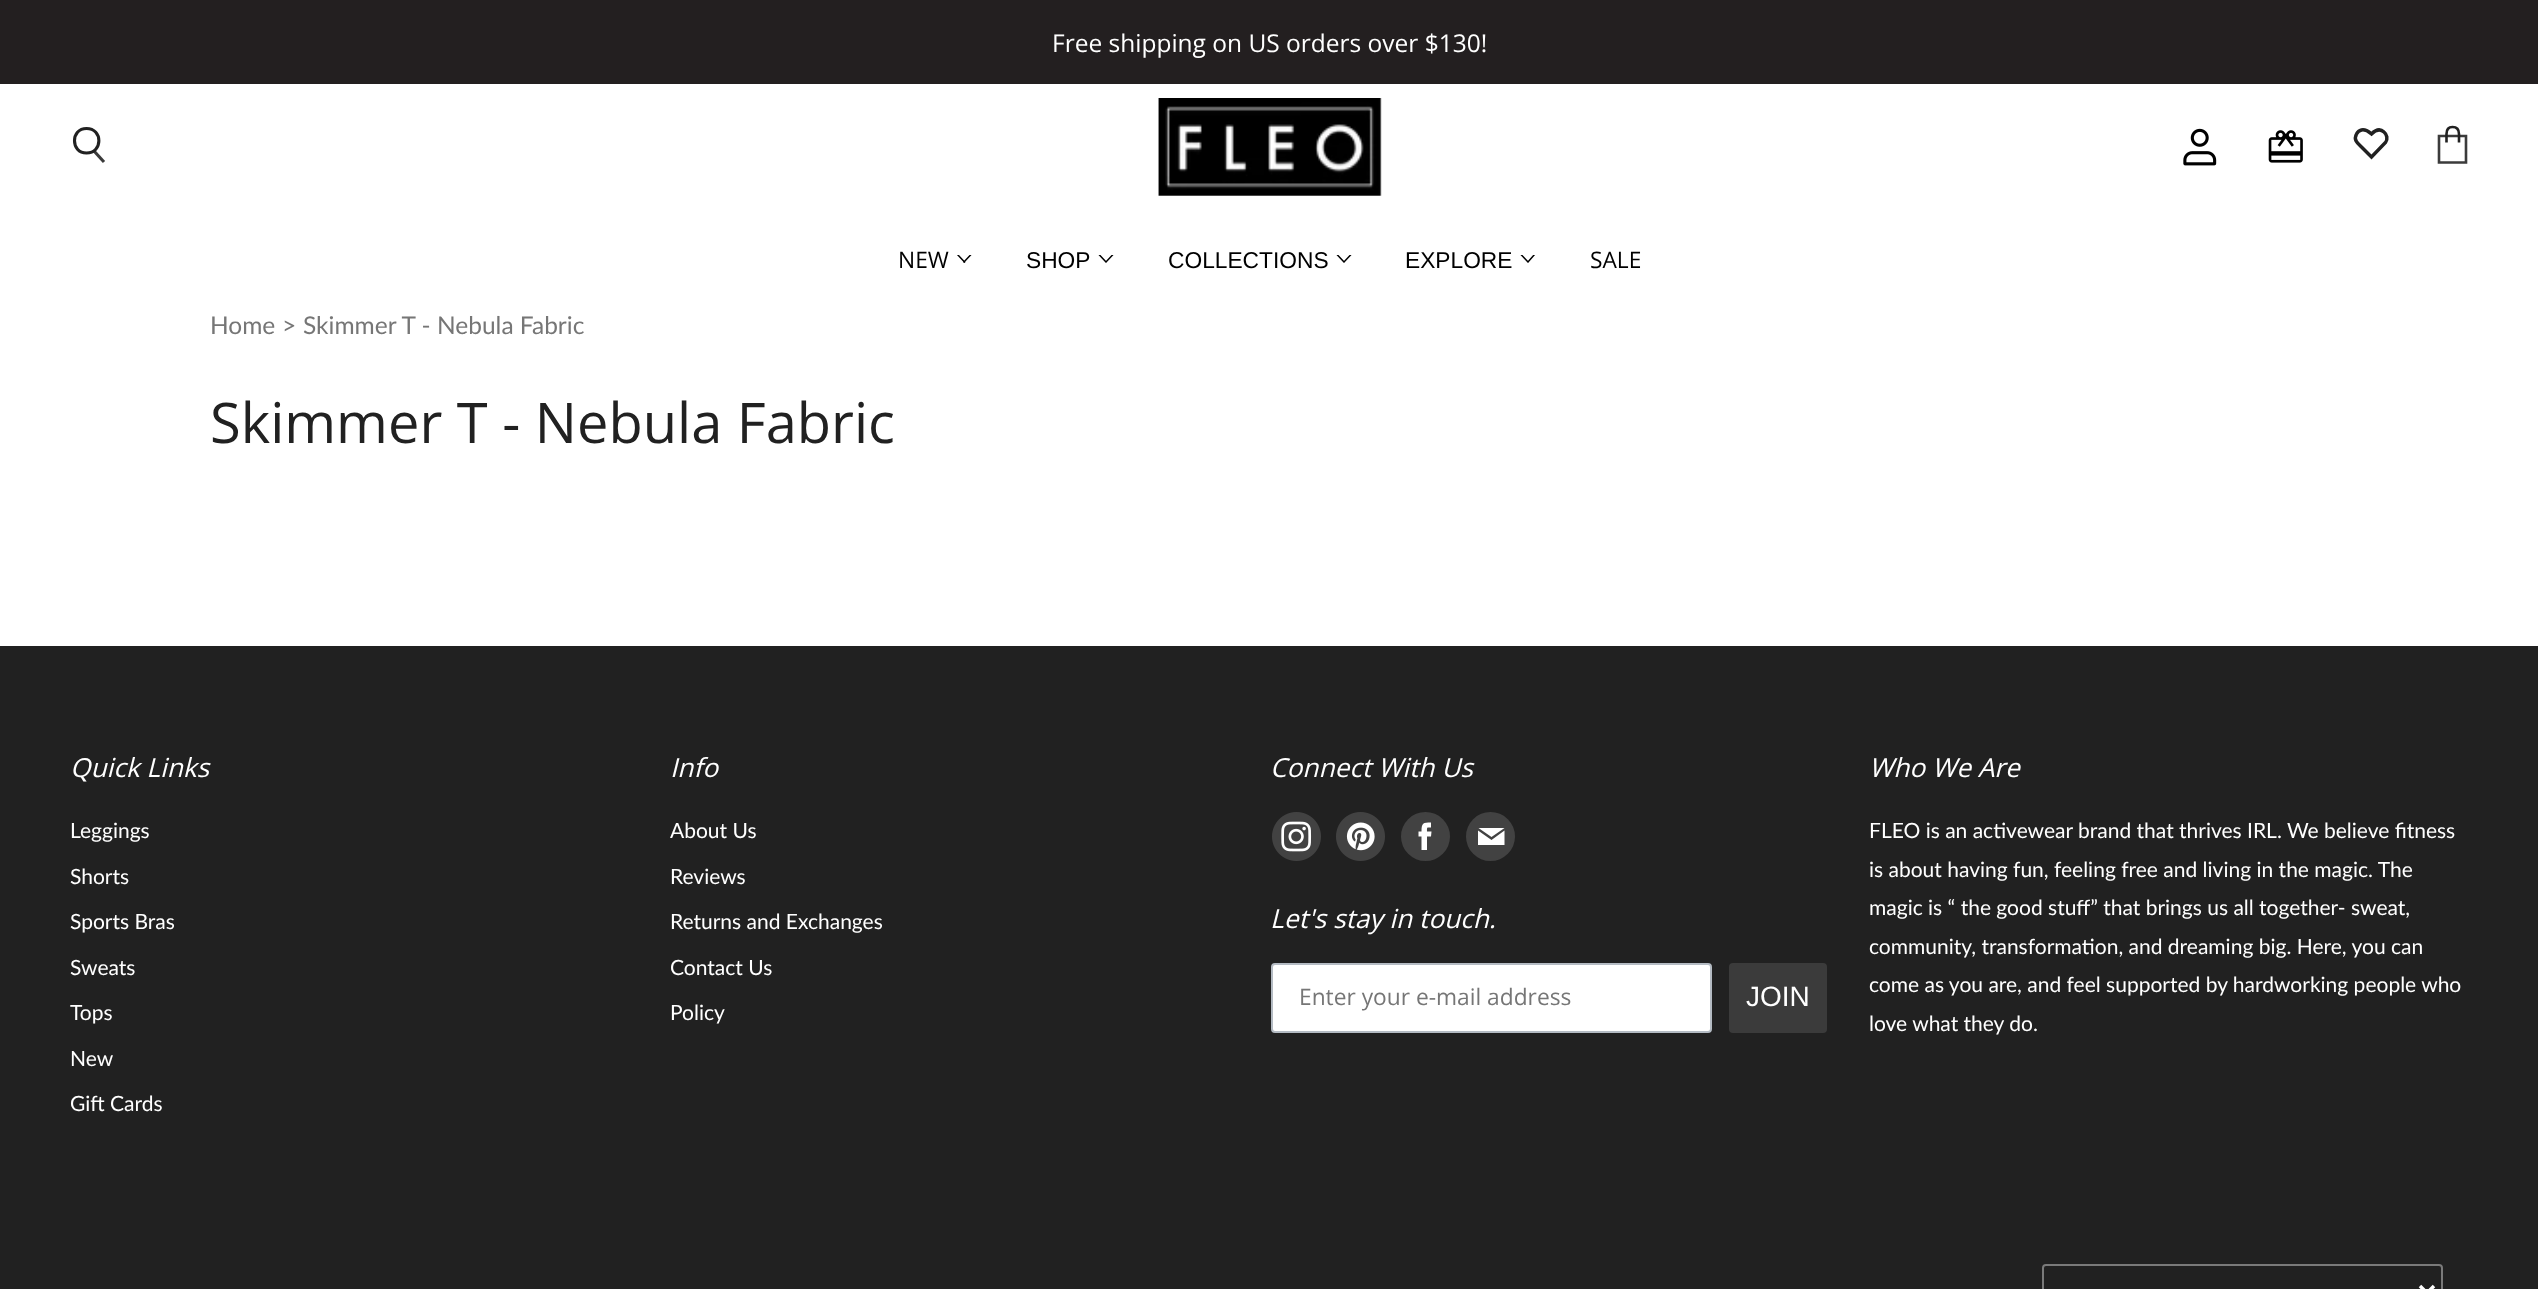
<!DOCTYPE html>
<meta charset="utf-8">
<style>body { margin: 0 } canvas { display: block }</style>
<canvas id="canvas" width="2538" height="1289"></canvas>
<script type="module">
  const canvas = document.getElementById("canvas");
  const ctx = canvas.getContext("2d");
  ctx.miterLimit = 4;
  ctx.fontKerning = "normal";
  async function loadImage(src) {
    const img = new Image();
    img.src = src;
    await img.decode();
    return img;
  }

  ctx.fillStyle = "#ffffff";
  ctx.fillRect(0, 0, 2538, 1289);
  ctx.fillStyle = "#231f20";
  ctx.fillRect(0, 0, 2538, 84);
  ctx.font = "24.5px Open Sans";
  ctx.fillStyle = "#ffffff";
  ctx.fillText("Free shipping on US orders over $130!", 1052, 52);
  ctx.beginPath();
  ctx.moveTo(104, 162);
  ctx.lineTo(94, 151);
  ctx.strokeStyle = "#3b3b3b";
  ctx.lineWidth = 3.1;
  ctx.stroke();
  ctx.beginPath();
  ctx.moveTo(86.5, 153);
  ctx.bezierCurveTo(103, 153, 103, 128.5, 86.5, 128.5);
  ctx.bezierCurveTo(70.5, 128.5, 70.5, 153, 86.5, 153);
  ctx.closePath();
  ctx.strokeStyle = "#212121";
  ctx.stroke();
  ctx.drawImage(await loadImage("img1.png"), 1158, 98, 224, 98);
  ctx.drawImage(await loadImage("img2.png"), 2183, 128, 34, 38);
  ctx.drawImage(await loadImage("img3.png"), 2268, 130, 35, 33);
  ctx.beginPath();
  ctx.moveTo(2384, 132);
  ctx.bezierCurveTo(2379.5, 128, 2375, 130.5, 2371.5, 134);
  ctx.bezierCurveTo(2368.5, 131.5, 2366, 129, 2361.5, 130);
  ctx.bezierCurveTo(2359.5, 130.5, 2357.5, 132, 2356.5, 134);
  ctx.bezierCurveTo(2353, 140.5, 2358.5, 144, 2362.5, 148);
  ctx.lineTo(2371.5, 157);
  ctx.lineTo(2385.5, 142.5);
  ctx.bezierCurveTo(2388, 139, 2387, 134.5, 2384, 132);
  ctx.closePath();
  ctx.lineWidth = 3.5;
  ctx.stroke();
  ctx.beginPath();
  ctx.moveTo(2439, 136);
  ctx.lineTo(2466, 136);
  ctx.lineTo(2466, 162.5);
  ctx.lineTo(2439, 162.5);
  ctx.closePath();
  ctx.strokeStyle = "#3b3b3b";
  ctx.lineWidth = 2.6;
  ctx.stroke();
  ctx.beginPath();
  ctx.moveTo(2459, 142.5);
  ctx.lineTo(2459, 134);
  ctx.bezierCurveTo(2459, 129, 2456, 127, 2452.5, 127);
  ctx.bezierCurveTo(2449, 127, 2446.5, 129, 2446.5, 134);
  ctx.lineTo(2446.5, 142.5);
  ctx.strokeStyle = "#212121";
  ctx.stroke();
  ctx.font = "22.75px Open Sans";
  ctx.fillStyle = "#000000";
  ctx.fillText("NEW", 898, 268);
  ctx.save();
  ctx.beginPath();
  ctx.rect(956, 255, 17, 10);
  ctx.clip();
  ctx.beginPath();
  ctx.moveTo(964.5, 262);
  ctx.lineTo(957.5, 254.5);
  ctx.moveTo(964, 262);
  ctx.lineTo(971, 254.5);
  ctx.strokeStyle = "#000000";
  ctx.lineWidth = 1.5;
  ctx.lineCap = "square";
  ctx.stroke();
  ctx.restore();
  ctx.font = "22.75px Liberation Sans";
  ctx.fillText("SHOP", 1026, 268);
  ctx.save();
  ctx.beginPath();
  ctx.rect(1097, 255, 18, 10);
  ctx.clip();
  ctx.beginPath();
  ctx.moveTo(1106, 262);
  ctx.lineTo(1099, 254.5);
  ctx.moveTo(1106, 262);
  ctx.lineTo(1113, 254.5);
  ctx.strokeStyle = "#000000";
  ctx.lineWidth = 1.5;
  ctx.lineCap = "square";
  ctx.stroke();
  ctx.restore();
  ctx.fillText("COLLECTIONS", 1168, 268);
  ctx.save();
  ctx.beginPath();
  ctx.rect(1335, 255, 18, 10);
  ctx.clip();
  ctx.beginPath();
  ctx.moveTo(1344, 262);
  ctx.lineTo(1337, 254.5);
  ctx.moveTo(1344, 262);
  ctx.lineTo(1351, 254.5);
  ctx.strokeStyle = "#000000";
  ctx.lineWidth = 1.5;
  ctx.lineCap = "square";
  ctx.stroke();
  ctx.restore();
  ctx.fillText("EXPLORE", 1405, 268);
  ctx.save();
  ctx.beginPath();
  ctx.rect(1519, 255, 18, 10);
  ctx.clip();
  ctx.beginPath();
  ctx.moveTo(1528, 262);
  ctx.lineTo(1521, 254.5);
  ctx.moveTo(1528, 262);
  ctx.lineTo(1534.5, 254.5);
  ctx.strokeStyle = "#000000";
  ctx.lineWidth = 1.5;
  ctx.lineCap = "square";
  ctx.stroke();
  ctx.restore();
  ctx.font = "22.75px Open Sans";
  ctx.fillText("SALE", 1590, 268);
  ctx.font = "24.5px Lato";
  ctx.fillStyle = "#767676";
  ctx.fillText("Home", 210, 334);
  ctx.fillText(">", 282, 334);
  ctx.fillText("Skimmer T - Nebula Fabric", 303, 334);
  ctx.font = "56px Open Sans";
  ctx.fillStyle = "#212121";
  ctx.fillText("Skimmer T - Nebula Fabric", 210, 443);
  ctx.fillRect(0, 646, 2538, 643);
  ctx.font = "italic 26.25px Open Sans";
  ctx.fillStyle = "#ffffff";
  ctx.fillText("Quick Links", 70, 777);
  ctx.font = "21px Lato";
  ctx.fillText("Leggings", 70, 838);
  ctx.fillText("Shorts", 70, 884);
  ctx.fillText("Sports Bras", 70, 929);
  ctx.fillText("Sweats", 70, 975);
  ctx.fillText("Tops", 70, 1020);
  ctx.fillText("New", 70, 1066);
  ctx.fillText("Gift Cards", 70, 1111);
  ctx.font = "italic 26.25px Open Sans";
  ctx.fillText("Info", 670, 777);
  ctx.font = "21px Lato";
  ctx.fillText("About Us", 670, 838);
  ctx.fillText("Reviews", 670, 884);
  ctx.fillText("Returns and Exchanges", 670, 929);
  ctx.fillText("Contact Us", 670, 975);
  ctx.fillText("Policy", 670, 1020);
  ctx.font = "italic 26.25px Open Sans";
  ctx.fillText("Connect With Us", 1270, 777);
  ctx.drawImage(await loadImage("img4.png"), 1272, 812, 49, 49);
  ctx.drawImage(await loadImage("img5.png"), 1336, 812, 49, 49);
  ctx.fillStyle = "#424242";
  ctx.beginPath();
  ctx.arc(1425.5, 836.5, 24.5, 0, Math.PI * 2);
  ctx.fill();
  ctx.fillStyle = "#ffffff";
  ctx.beginPath();
  ctx.moveTo(1431, 836.5);
  ctx.lineTo(1427, 836.5);
  ctx.lineTo(1427, 850);
  ctx.lineTo(1421.5, 850);
  ctx.lineTo(1421.5, 836.5);
  ctx.lineTo(1418.5, 836.5);
  ctx.lineTo(1418.5, 831.5);
  ctx.lineTo(1421.5, 831.5);
  ctx.bezierCurveTo(1421.5, 823, 1423, 822.5, 1431, 822.5);
  ctx.lineTo(1431, 827.5);
  ctx.bezierCurveTo(1426.5, 827.5, 1427, 827, 1427, 831.5);
  ctx.lineTo(1431.5, 831.5);
  ctx.closePath();
  ctx.fill("evenodd");
  ctx.fillStyle = "#424242";
  ctx.beginPath();
  ctx.arc(1490.5, 836.5, 24.5, 0, Math.PI * 2);
  ctx.fill();
  ctx.fillStyle = "#ffffff";
  ctx.beginPath();
  ctx.moveTo(1504.5, 828);
  ctx.lineTo(1478.5, 828);
  ctx.lineTo(1491.5, 837);
  ctx.closePath();
  ctx.moveTo(1491.5, 840);
  ctx.lineTo(1478, 830.5);
  ctx.lineTo(1478, 845);
  ctx.lineTo(1504.5, 845);
  ctx.lineTo(1504.5, 830.5);
  ctx.closePath();
  ctx.fill("evenodd");
  ctx.fillText("Let's stay in touch.", 1270, 928);
  ctx.beginPath();
  ctx.roundRect(1272, 964, 439, 68, 3);
  ctx.fill();
  ctx.strokeStyle = "#b4bbc3";
  ctx.lineWidth = 2;
  ctx.stroke();
  ctx.font = "22.75px Open Sans";
  ctx.fillStyle = "#767676";
  ctx.fillText("Enter your e-mail address", 1299, 1005);
  ctx.fillStyle = "#3b3b3b";
  ctx.beginPath();
  ctx.roundRect(1729, 963, 98, 70, 4);
  ctx.fill();
  ctx.font = "28px Liberation Sans";
  ctx.fillStyle = "#ffffff";
  ctx.fillText("JOIN", 1746, 1006);
  ctx.font = "italic 26.25px Open Sans";
  ctx.fillText("Who We Are", 1869, 777);
  ctx.font = "21px Lato";
  ctx.fillText("FLEO is an activewear brand that thrives IRL. We believe fitness", 1869, 838);
  ctx.fillText("is about having fun, feeling free and living in the magic. The", 1869, 877);
  ctx.fillText("magic is “ the good stuff” that brings us all together- sweat,", 1869, 915);
  ctx.fillText("community, transformation, and dreaming big. Here, you can", 1869, 954);
  ctx.fillText("come as you are, and feel supported by hardworking people who", 1869, 992);
  ctx.fillText("love what they do.", 1869, 1031);
  ctx.beginPath();
  ctx.roundRect(2043, 1265, 399, 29, 3);
  ctx.strokeStyle = "#7a7a7a";
  ctx.stroke();
  ctx.beginPath();
  ctx.moveTo(2420, 1286);
  ctx.lineTo(2427, 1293);
  ctx.lineTo(2434, 1286);
  ctx.strokeStyle = "#ffffff";
  ctx.lineWidth = 3.5;
  ctx.stroke();
</script>
